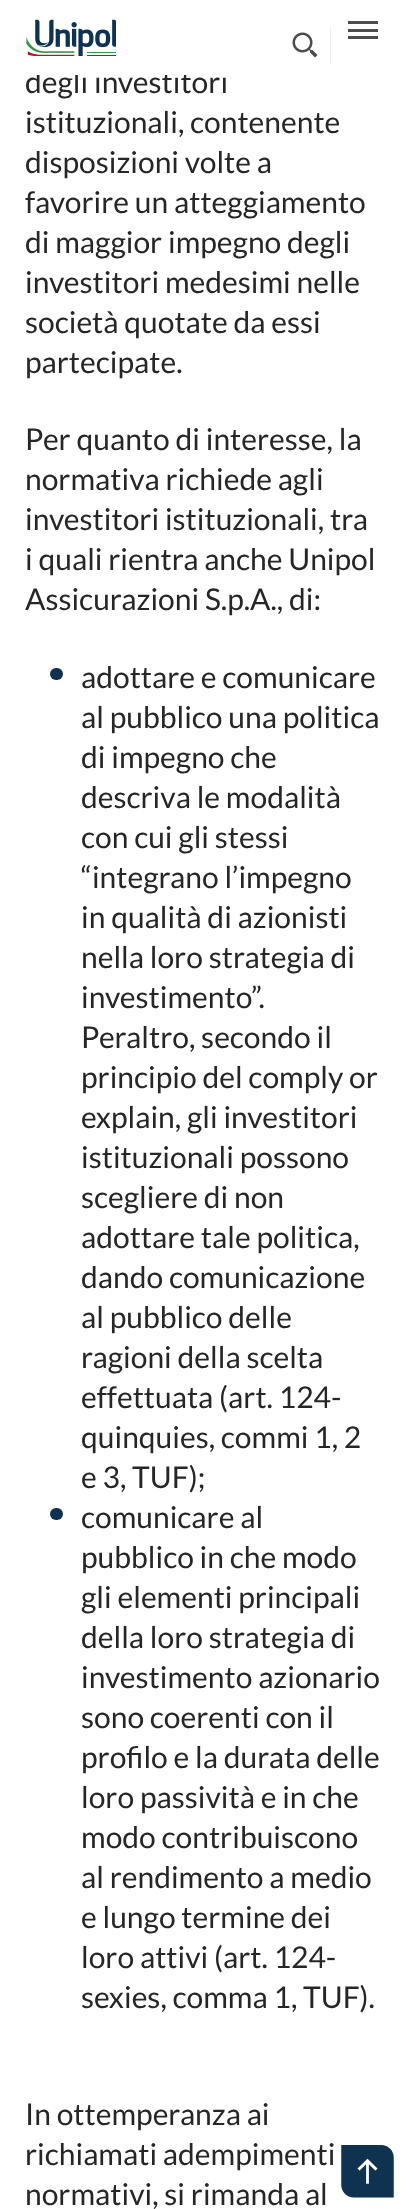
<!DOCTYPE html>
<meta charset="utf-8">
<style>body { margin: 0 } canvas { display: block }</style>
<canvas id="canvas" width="406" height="2209"></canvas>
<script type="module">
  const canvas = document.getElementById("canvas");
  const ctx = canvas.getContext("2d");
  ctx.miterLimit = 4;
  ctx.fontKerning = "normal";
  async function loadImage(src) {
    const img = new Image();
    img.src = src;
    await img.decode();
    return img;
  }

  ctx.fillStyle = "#ffffff";
  ctx.fillRect(0, 0, 406, 2209);
  ctx.font = "30px Lato";
  ctx.fillStyle = "#262626";
  ctx.fillText("degli investitori", 25, 93);
  ctx.fillStyle = "#ffffff";
  ctx.fillRect(36, 70, 191, 5);
  ctx.drawImage(await loadImage("img1.png"), 26, 19, 90, 37);
  ctx.fillStyle = "#f0f0f0";
  ctx.fillRect(330, 26, 1, 38);
  ctx.drawImage(await loadImage("img2.png"), 292, 32, 26, 26);
  ctx.fillStyle = "#4c4c4e";
  ctx.fillRect(348, 21, 30, 3);
  ctx.fillRect(348, 29, 30, 3);
  ctx.fillRect(348, 36, 30, 3);
  ctx.fillStyle = "#262626";
  ctx.fillText("istituzionali, contenente", 25, 133);
  ctx.fillText("disposizioni volte a", 25, 173);
  ctx.fillText("favorire un atteggiamento", 25, 213);
  ctx.fillText("di maggior impegno degli", 25, 253);
  ctx.fillText("investitori medesimi nelle", 25, 293);
  ctx.fillText("società quotate da essi", 25, 333);
  ctx.fillText("partecipate.", 25, 373);
  ctx.fillText("Per quanto di interesse, la", 25, 450);
  ctx.fillText("normativa richiede agli", 25, 490);
  ctx.fillText("investitori istituzionali, tra", 25, 530);
  ctx.fillText("i quali rientra anche Unipol", 25, 570);
  ctx.fillText("Assicurazioni S.p.A., di:", 25, 610);
  ctx.fillStyle = "#0f3250";
  ctx.beginPath();
  ctx.roundRect(50, 668, 13, 12, 6);
  ctx.fill();
  ctx.fillStyle = "#262626";
  ctx.fillText("adottare e comunicare", 81, 688);
  ctx.fillText("al pubblico una politica", 81, 728);
  ctx.fillText("di impegno che", 81, 768);
  ctx.fillText("descriva le modalità", 81, 808);
  ctx.fillText("con cui gli stessi", 81, 848);
  ctx.fillText("“integrano l’impegno", 81, 888);
  ctx.fillText("in qualità di azionisti", 81, 928);
  ctx.fillText("nella loro strategia di", 81, 968);
  ctx.fillText("investimento”.", 81, 1008);
  ctx.fillText("Peraltro, secondo il", 81, 1048);
  ctx.fillText("principio del comply or", 81, 1088);
  ctx.fillText("explain, gli investitori", 81, 1128);
  ctx.fillText("istituzionali possono", 81, 1168);
  ctx.fillText("scegliere di non", 81, 1208);
  ctx.fillText("adottare tale politica,", 81, 1248);
  ctx.fillText("dando comunicazione", 81, 1288);
  ctx.fillText("al pubblico delle", 81, 1328);
  ctx.fillText("ragioni della scelta", 81, 1368);
  ctx.fillText("effettuata (art. 124-", 81, 1408);
  ctx.fillText("quinquies, commi 1, 2", 81, 1448);
  ctx.fillText("e 3, TUF);", 81, 1488);
  ctx.fillStyle = "#0f3250";
  ctx.beginPath();
  ctx.roundRect(50, 1508, 13, 12, 6);
  ctx.fill();
  ctx.fillStyle = "#262626";
  ctx.fillText("comunicare al", 81, 1528);
  ctx.fillText("pubblico in che modo", 81, 1568);
  ctx.fillText("gli elementi principali", 81, 1608);
  ctx.fillText("della loro strategia di", 81, 1648);
  ctx.fillText("investimento azionario", 81, 1688);
  ctx.fillText("sono coerenti con il", 81, 1728);
  ctx.fillText("profilo e la durata delle", 81, 1768);
  ctx.fillText("loro passività e in che", 81, 1808);
  ctx.fillText("modo contribuiscono", 81, 1848);
  ctx.fillText("al rendimento a medio", 81, 1888);
  ctx.fillText("e lungo termine dei", 81, 1928);
  ctx.fillText("loro attivi (art. 124-", 81, 1968);
  ctx.fillText("sexies, comma 1, TUF).", 81, 2008);
  ctx.fillText("In ottemperanza ai", 25, 2125);
  ctx.fillText("richiamati adempimenti", 25, 2165);
  ctx.fillText("normativi, si rimanda al", 25, 2205);
  ctx.drawImage(await loadImage("img3.png"), 341, 2145, 53, 53);
</script>
